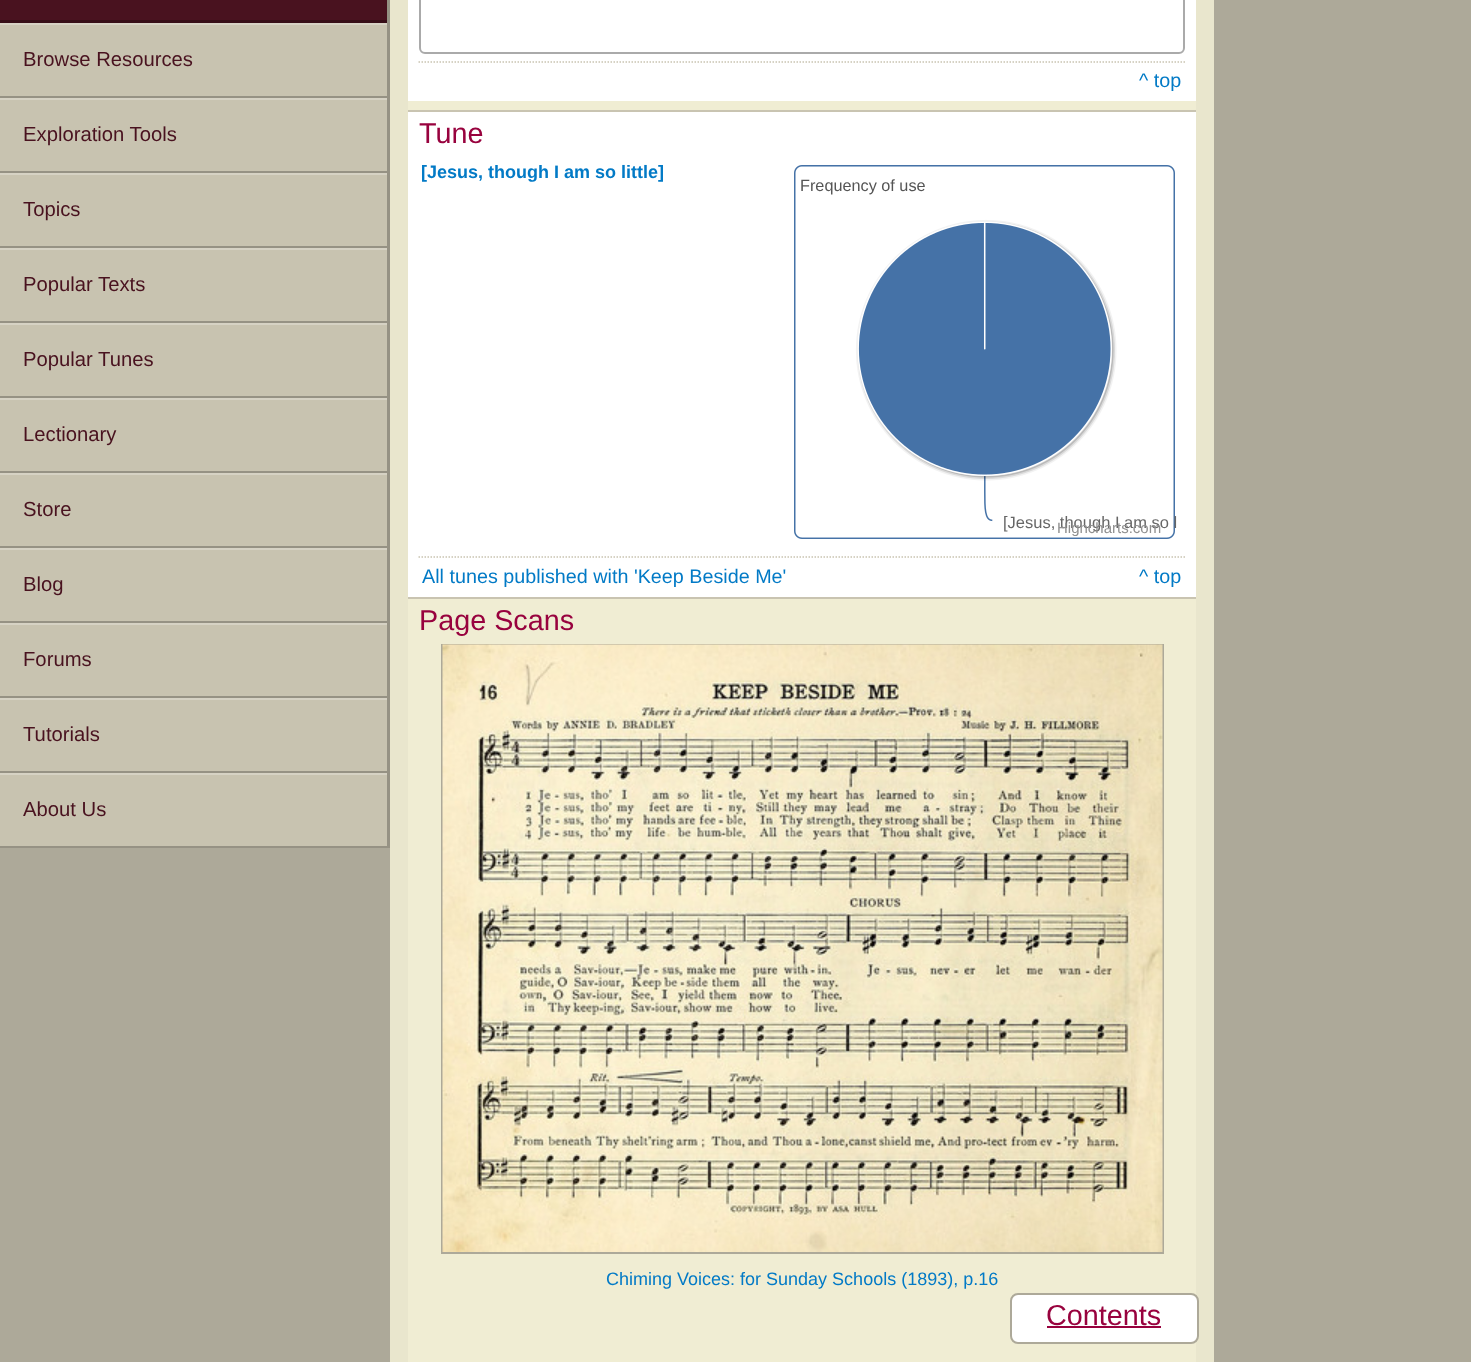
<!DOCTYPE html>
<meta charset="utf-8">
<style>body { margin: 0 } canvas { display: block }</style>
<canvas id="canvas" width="1471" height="1362"></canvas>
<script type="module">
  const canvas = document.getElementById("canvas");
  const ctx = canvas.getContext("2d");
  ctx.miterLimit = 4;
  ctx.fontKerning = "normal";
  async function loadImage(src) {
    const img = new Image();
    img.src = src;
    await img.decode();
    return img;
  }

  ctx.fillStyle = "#ada999";
  ctx.fillRect(0, 0, 1471, 1362);
  ctx.fillStyle = "#c8c3b0";
  ctx.fillRect(0, 25, 387, 821);
  ctx.fillStyle = "#969284";
  ctx.fillRect(387, 0, 3, 848);
  ctx.fillStyle = "#49121f";
  ctx.fillRect(0, 0, 387, 20);
  ctx.fillStyle = "#370e17";
  ctx.fillRect(0, 20, 387, 3);
  ctx.fillStyle = "#d6d2c4";
  ctx.fillRect(0, 23, 387, 2);
  ctx.fillStyle = "#969284";
  ctx.fillRect(0, 96, 387, 2);
  ctx.font = "20.25px Liberation Sans";
  ctx.fillStyle = "#49121f";
  ctx.fillText("Browse Resources", 23, 66);
  ctx.fillStyle = "#d6d2c4";
  ctx.fillRect(0, 98, 387, 2);
  ctx.fillStyle = "#969284";
  ctx.fillRect(0, 171, 387, 2);
  ctx.fillStyle = "#49121f";
  ctx.fillText("Exploration Tools", 23, 141);
  ctx.fillStyle = "#d6d2c4";
  ctx.fillRect(0, 173, 387, 2);
  ctx.fillStyle = "#969284";
  ctx.fillRect(0, 246, 387, 2);
  ctx.fillStyle = "#49121f";
  ctx.fillText("Topics", 23, 216);
  ctx.fillStyle = "#d6d2c4";
  ctx.fillRect(0, 248, 387, 2);
  ctx.fillStyle = "#969284";
  ctx.fillRect(0, 321, 387, 2);
  ctx.fillStyle = "#49121f";
  ctx.fillText("Popular Texts", 23, 291);
  ctx.fillStyle = "#d6d2c4";
  ctx.fillRect(0, 323, 387, 2);
  ctx.fillStyle = "#969284";
  ctx.fillRect(0, 396, 387, 2);
  ctx.fillStyle = "#49121f";
  ctx.fillText("Popular Tunes", 23, 366);
  ctx.fillStyle = "#d6d2c4";
  ctx.fillRect(0, 398, 387, 2);
  ctx.fillStyle = "#969284";
  ctx.fillRect(0, 471, 387, 2);
  ctx.fillStyle = "#49121f";
  ctx.fillText("Lectionary", 23, 441);
  ctx.fillStyle = "#d6d2c4";
  ctx.fillRect(0, 473, 387, 2);
  ctx.fillStyle = "#969284";
  ctx.fillRect(0, 546, 387, 2);
  ctx.fillStyle = "#49121f";
  ctx.fillText("Store", 23, 516);
  ctx.fillStyle = "#d6d2c4";
  ctx.fillRect(0, 548, 387, 2);
  ctx.fillStyle = "#969284";
  ctx.fillRect(0, 621, 387, 2);
  ctx.fillStyle = "#49121f";
  ctx.fillText("Blog", 23, 591);
  ctx.fillStyle = "#d6d2c4";
  ctx.fillRect(0, 623, 387, 2);
  ctx.fillStyle = "#969284";
  ctx.fillRect(0, 696, 387, 2);
  ctx.fillStyle = "#49121f";
  ctx.fillText("Forums", 23, 666);
  ctx.fillStyle = "#d6d2c4";
  ctx.fillRect(0, 698, 387, 2);
  ctx.fillStyle = "#969284";
  ctx.fillRect(0, 771, 387, 2);
  ctx.fillStyle = "#49121f";
  ctx.fillText("Tutorials", 23, 741);
  ctx.fillStyle = "#d6d2c4";
  ctx.fillRect(0, 773, 387, 2);
  ctx.fillStyle = "#969284";
  ctx.fillRect(0, 846, 387, 2);
  ctx.fillStyle = "#49121f";
  ctx.fillText("About Us", 23, 816);
  ctx.fillStyle = "#e9e6cd";
  ctx.fillRect(390, 0, 824, 1362);
  ctx.fillStyle = "#ffffff";
  ctx.fillRect(408, 0, 788, 101);
  ctx.beginPath();
  ctx.roundRect(420, -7, 764, 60, 5);
  ctx.strokeStyle = "#aaaaaa";
  ctx.lineWidth = 2;
  ctx.stroke();
  ctx.beginPath();
  ctx.moveTo(418.5, 62);
  ctx.lineTo(1185, 62);
  ctx.strokeStyle = "#c9c4b1";
  ctx.lineWidth = 1.5;
  ctx.setLineDash([1.5, 1.5]);
  ctx.stroke();
  ctx.font = "19.75px Liberation Sans";
  ctx.fillStyle = "#027ac6";
  ctx.fillText("^ top", 1139, 87);
  ctx.fillStyle = "#f0edd3";
  ctx.fillRect(408, 101, 788, 9);
  ctx.fillStyle = "#ffffff";
  ctx.fillRect(408, 112, 788, 485);
  ctx.fillStyle = "#c9c4b1";
  ctx.fillRect(408, 110, 788, 2);
  ctx.font = "28.75px Liberation Sans";
  ctx.fillStyle = "#98023e";
  ctx.fillText("Tune", 419, 143);
  ctx.font = "bold 18px Liberation Sans";
  ctx.fillStyle = "#027ac6";
  ctx.fillText("[Jesus, though I am so little]", 421, 178);
  ctx.drawImage(await loadImage("img1.png"), 794, 165, 381, 374);
  ctx.font = "16.25px Liberation Sans";
  ctx.fillStyle = "#555555";
  ctx.fillText("Frequency of use", 800, 191);
  ctx.font = "16.5px Liberation Sans";
  ctx.fillStyle = "#666666";
  ctx.fillText("[Jesus, though I am so l", 1003, 528);
  ctx.font = "15px Liberation Sans";
  ctx.fillStyle = "#909090";
  ctx.fillText("Highcharts.com", 1057, 533);
  ctx.beginPath();
  ctx.moveTo(418.5, 557);
  ctx.lineTo(1185, 557);
  ctx.stroke();
  ctx.font = "19.75px Liberation Sans";
  ctx.fillStyle = "#027ac6";
  ctx.fillText("All tunes published with 'Keep Beside Me'", 422, 583);
  ctx.fillText("^ top", 1139, 583);
  ctx.fillStyle = "#f0edd3";
  ctx.fillRect(408, 599, 788, 763);
  ctx.fillStyle = "#c9c4b1";
  ctx.fillRect(408, 597, 788, 2);
  ctx.font = "28.75px Liberation Sans";
  ctx.fillStyle = "#98023e";
  ctx.fillText("Page Scans", 419, 630);
  ctx.strokeStyle = "#ada999";
  ctx.lineWidth = 2;
  ctx.setLineDash([]);
  ctx.strokeRect(442, 645, 721, 608);
  ctx.drawImage(await loadImage("img2.png"), 442, 644, 721, 608);
  ctx.font = "18px Liberation Sans";
  ctx.fillStyle = "#027ac6";
  ctx.fillText("Chiming Voices: for Sunday Schools (1893), p.16", 606, 1285);
  ctx.fillStyle = "#ffffff";
  ctx.beginPath();
  ctx.roundRect(1011, 1294, 187, 49, 7);
  ctx.fill();
  ctx.stroke();
  ctx.font = "28.75px Liberation Sans";
  ctx.fillStyle = "#98023e";
  ctx.fillText("Contents", 1046, 1325);
  ctx.fillRect(1047, 1326, 114, 2);
</script>
